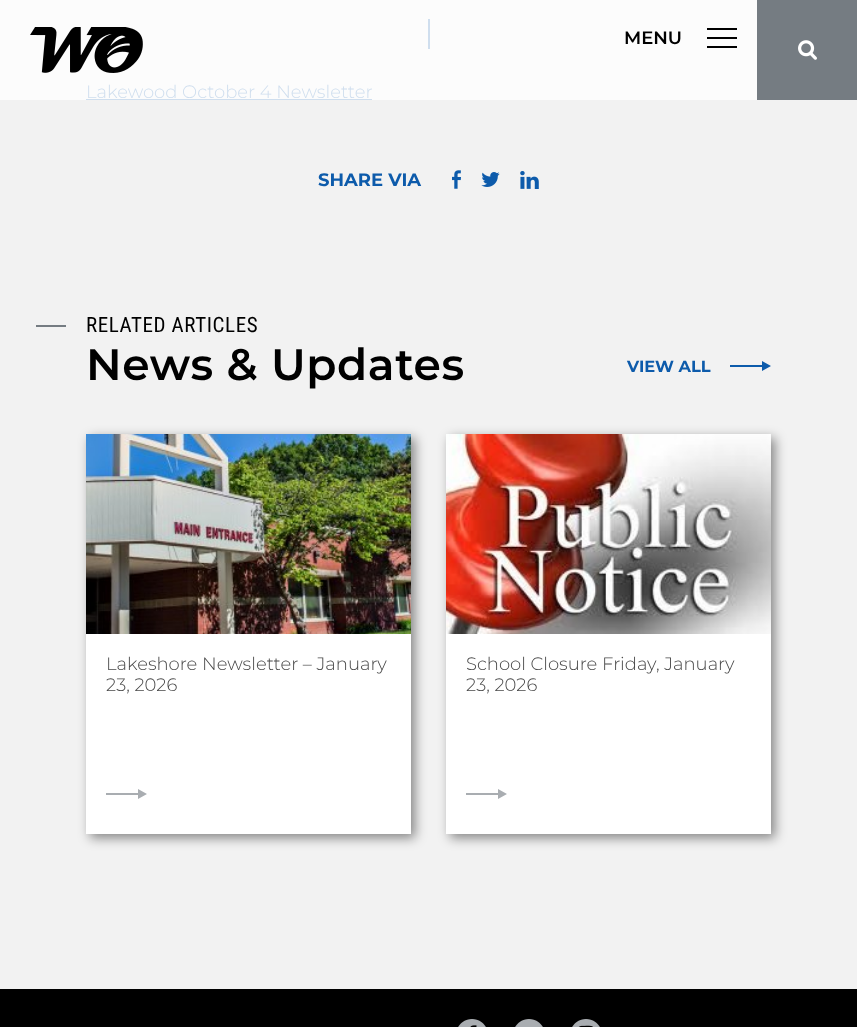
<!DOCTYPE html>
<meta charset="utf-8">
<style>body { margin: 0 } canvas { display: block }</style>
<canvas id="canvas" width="857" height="1027"></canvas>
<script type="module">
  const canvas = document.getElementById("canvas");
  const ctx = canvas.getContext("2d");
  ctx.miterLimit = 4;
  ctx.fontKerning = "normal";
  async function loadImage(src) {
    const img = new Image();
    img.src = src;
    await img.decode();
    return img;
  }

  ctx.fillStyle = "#f2f2f2";
  ctx.fillRect(0, 0, 857, 1027);
  ctx.fillStyle = "#fcfcfc";
  ctx.fillRect(0, 0, 757, 100);
  ctx.drawImage(await loadImage("img1.png"), 30, 27, 113, 46);
  ctx.font = "600 18px Montserrat";
  ctx.fillStyle = "#000000";
  ctx.fillText("MENU", 624, 44);
  ctx.fillRect(707, 28, 30, 2);
  ctx.fillRect(707, 37, 30, 2);
  ctx.fillRect(707, 46, 30, 2);
  ctx.fillStyle = "#757c82";
  ctx.fillRect(757, 0, 100, 100);
  ctx.drawImage(await loadImage("img2.png"), 798, 40, 19, 20);
  ctx.fillStyle = "#cfdeee";
  ctx.fillRect(428, 19, 2, 30);
  ctx.font = "300 18px Montserrat";
  ctx.fillText("Lakewood October 4 Newsletter", 86, 98);
  ctx.fillRect(86, 99, 286, 1);
  ctx.font = "bold 18px Montserrat";
  ctx.fillStyle = "#0d5bab";
  ctx.fillText("SHARE VIA", 318, 186);
  ctx.drawImage(await loadImage("img3.png"), 452, 170, 9, 19);
  ctx.drawImage(await loadImage("img4.png"), 481, 172, 19, 15);
  ctx.drawImage(await loadImage("img5.png"), 520, 171, 19, 18);
  ctx.fillStyle = "#757c82";
  ctx.fillRect(36, 325, 30, 2);
  ctx.letterSpacing = "0.6px";
  ctx.font = "21px Roboto Condensed";
  ctx.fillStyle = "#000000";
  ctx.fillText("RELATED ARTICLES", 86, 332);
  ctx.font = "600 44px Montserrat";
  ctx.fillText("News & Updates", 86, 380);
  ctx.letterSpacing = "0px";
  ctx.font = "bold 16.25px Montserrat";
  ctx.fillStyle = "#0d5bab";
  ctx.fillText("VIEW ALL", 627, 372);
  ctx.beginPath();
  ctx.moveTo(730, 367);
  ctx.lineTo(762, 367);
  ctx.lineTo(762, 371);
  ctx.lineTo(771, 366);
  ctx.lineTo(762, 361);
  ctx.lineTo(762, 365);
  ctx.lineTo(730, 365);
  ctx.closePath();
  ctx.fill();
  ctx.fillStyle = "rgba(0, 0, 0, 0.45)";
  ctx.filter = "blur(6px)";
  ctx.beginPath();
  ctx.rect(90, 438, 325, 400);
  ctx.fill();
  ctx.filter = "none";
  ctx.fillStyle = "#ffffff";
  ctx.fillRect(86, 634, 325, 200);
  ctx.drawImage(await loadImage("img6.png"), 86, 434, 325, 200);
  ctx.font = "300 18px Montserrat";
  ctx.fillStyle = "#494949";
  ctx.fillText("Lakeshore Newsletter – January", 106, 670);
  ctx.fillText("23, 2026", 106, 691);
  ctx.fillStyle = "#a9adb1";
  ctx.beginPath();
  ctx.moveTo(106, 795);
  ctx.lineTo(138, 795);
  ctx.lineTo(138, 799);
  ctx.lineTo(147, 794);
  ctx.lineTo(138, 789);
  ctx.lineTo(138, 793);
  ctx.lineTo(106, 793);
  ctx.closePath();
  ctx.fill();
  ctx.fillStyle = "rgba(0, 0, 0, 0.45)";
  ctx.filter = "blur(6px)";
  ctx.beginPath();
  ctx.rect(450, 438, 325, 400);
  ctx.fill();
  ctx.filter = "none";
  ctx.fillStyle = "#ffffff";
  ctx.fillRect(446, 634, 325, 200);
  ctx.drawImage(await loadImage("img7.png"), 446, 434, 325, 200);
  ctx.fillStyle = "#494949";
  ctx.fillText("School Closure Friday, January", 466, 670);
  ctx.fillText("23, 2026", 466, 691);
  ctx.fillStyle = "#a9adb1";
  ctx.beginPath();
  ctx.moveTo(466, 795);
  ctx.lineTo(498, 795);
  ctx.lineTo(498, 799);
  ctx.lineTo(507, 794);
  ctx.lineTo(498, 789);
  ctx.lineTo(498, 793);
  ctx.lineTo(466, 793);
  ctx.closePath();
  ctx.fill();
  ctx.fillStyle = "#000000";
  ctx.fillRect(0, 989, 857, 38);
  ctx.drawImage(await loadImage("img8.png"), 458, 1019, 28, 8);
  ctx.drawImage(await loadImage("img9.png"), 515, 1019, 28, 8);
  ctx.drawImage(await loadImage("img10.png"), 572, 1019, 28, 8);
</script>
